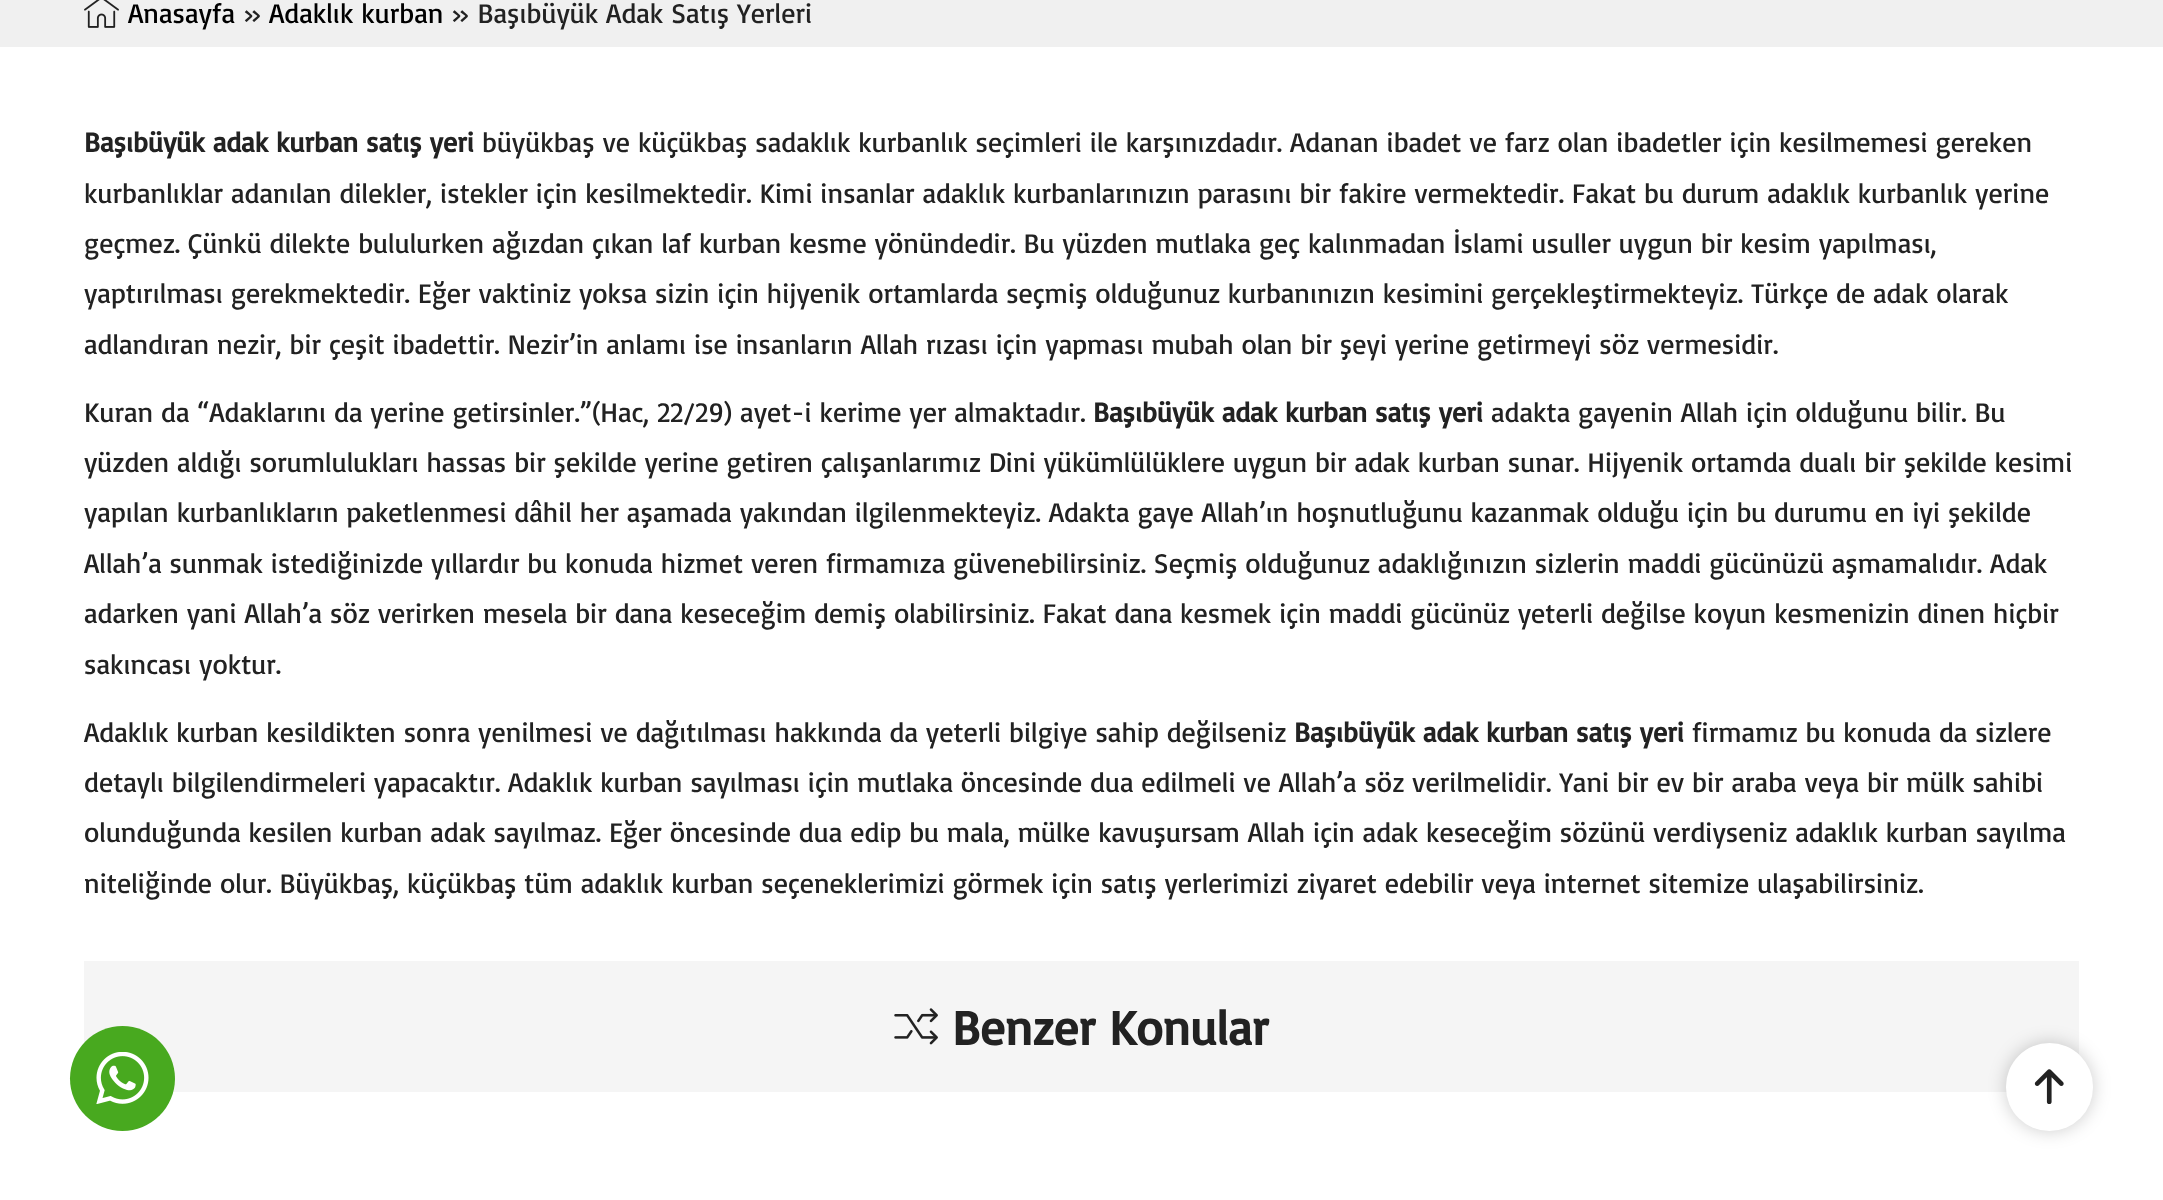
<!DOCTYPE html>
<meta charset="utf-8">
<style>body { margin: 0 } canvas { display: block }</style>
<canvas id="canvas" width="2163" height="1200"></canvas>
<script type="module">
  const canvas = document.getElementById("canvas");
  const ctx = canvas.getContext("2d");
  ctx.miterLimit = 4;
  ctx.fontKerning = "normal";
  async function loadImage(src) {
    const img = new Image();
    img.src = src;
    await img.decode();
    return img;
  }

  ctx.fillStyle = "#ffffff";
  ctx.fillRect(0, 0, 2163, 1200);
  ctx.fillStyle = "#f0f0f0";
  ctx.fillRect(0, 0, 2163, 47);
  ctx.drawImage(await loadImage("img1.png"), 84, 0, 35, 28);
  ctx.font = "28px Basic";
  ctx.fillStyle = "#000000";
  ctx.fillText("Anasayfa", 128, 23);
  ctx.fillStyle = "#222222";
  ctx.fillText("»", 243, 23);
  ctx.fillStyle = "#000000";
  ctx.fillText("Adaklık kurban", 269, 23);
  ctx.fillStyle = "#222222";
  ctx.fillText("» Başıbüyük Adak Satış Yerleri", 451, 23);
  ctx.font = "bold 28px Basic";
  ctx.fillText("Başıbüyük adak kurban satış yeri", 84, 152);
  ctx.font = "28px Basic";
  ctx.fillText("büyükbaş ve küçükbaş sadaklık kurbanlık seçimleri ile karşınızdadır. Adanan ibadet ve farz olan ibadetler için kesilmemesi gereken", 482, 152);
  ctx.fillText("kurbanlıklar adanılan dilekler, istekler için kesilmektedir. Kimi insanlar adaklık kurbanlarınızın parasını bir fakire vermektedir. Fakat bu durum adaklık kurbanlık yerine", 84, 203);
  ctx.fillText("geçmez. Çünkü dilekte bululurken ağızdan çıkan laf kurban kesme yönündedir. Bu yüzden mutlaka geç kalınmadan İslami usuller uygun bir kesim yapılması,", 84, 253);
  ctx.fillText("yaptırılması gerekmektedir. Eğer vaktiniz yoksa sizin için hijyenik ortamlarda seçmiş olduğunuz kurbanınızın kesimini gerçekleştirmekteyiz. Türkçe de adak olarak", 84, 303);
  ctx.fillText("adlandıran nezir, bir çeşit ibadettir. Nezir’in anlamı ise insanların Allah rızası için yapması mubah olan bir şeyi yerine getirmeyi söz vermesidir.", 84, 354);
  ctx.fillText("Kuran da “Adaklarını da yerine getirsinler.”(Hac, 22/29) ayet-i kerime yer almaktadır.", 84, 422);
  ctx.font = "bold 28px Basic";
  ctx.fillText("Başıbüyük adak kurban satış yeri", 1093, 422);
  ctx.font = "28px Basic";
  ctx.fillText("adakta gayenin Allah için olduğunu bilir. Bu", 1491, 422);
  ctx.fillText("yüzden aldığı sorumlulukları hassas bir şekilde yerine getiren çalışanlarımız Dini yükümlülüklere uygun bir adak kurban sunar. Hijyenik ortamda dualı bir şekilde kesimi", 84, 472);
  ctx.fillText("yapılan kurbanlıkların paketlenmesi dâhil her aşamada yakından ilgilenmekteyiz. Adakta gaye Allah’ın hoşnutluğunu kazanmak olduğu için bu durumu en iyi şekilde", 84, 522);
  ctx.fillText("Allah’a sunmak istediğinizde yıllardır bu konuda hizmet veren firmamıza güvenebilirsiniz. Seçmiş olduğunuz adaklığınızın sizlerin maddi gücünüzü aşmamalıdır. Adak", 84, 573);
  ctx.fillText("adarken yani Allah’a söz verirken mesela bir dana keseceğim demiş olabilirsiniz. Fakat dana kesmek için maddi gücünüz yeterli değilse koyun kesmenizin dinen hiçbir", 84, 623);
  ctx.fillText("sakıncası yoktur.", 84, 674);
  ctx.fillText("Adaklık kurban kesildikten sonra yenilmesi ve dağıtılması hakkında da yeterli bilgiye sahip değilseniz", 84, 742);
  ctx.font = "bold 28px Basic";
  ctx.fillText("Başıbüyük adak kurban satış yeri", 1294, 742);
  ctx.font = "28px Basic";
  ctx.fillText("firmamız bu konuda da sizlere", 1692, 742);
  ctx.fillText("detaylı bilgilendirmeleri yapacaktır. Adaklık kurban sayılması için mutlaka öncesinde dua edilmeli ve Allah’a söz verilmelidir. Yani bir ev bir araba veya bir mülk sahibi", 84, 792);
  ctx.fillText("olunduğunda kesilen kurban adak sayılmaz. Eğer öncesinde dua edip bu mala, mülke kavuşursam Allah için adak keseceğim sözünü verdiyseniz adaklık kurban sayılma", 84, 842);
  ctx.fillText("niteliğinde olur. Büyükbaş, küçükbaş tüm adaklık kurban seçeneklerimizi görmek için satış yerlerimizi ziyaret edebilir veya internet sitemize ulaşabilirsiniz.", 84, 893);
  ctx.fillStyle = "#f5f5f5";
  ctx.fillRect(84, 961, 1995, 131);
  ctx.drawImage(await loadImage("img2.png"), 894, 1008, 44, 37);
  ctx.font = "bold 49px Basic";
  ctx.fillStyle = "#222222";
  ctx.fillText("Benzer Konular", 952, 1045);
  ctx.fillStyle = "#48a91f";
  ctx.beginPath();
  ctx.arc(122.5, 1078.5, 52.5, 0, Math.PI * 2);
  ctx.fill();
  ctx.drawImage(await loadImage("img3.png"), 96, 1052, 53, 52);
  ctx.fillStyle = "rgba(0, 0, 0, 0.2)";
  ctx.filter = "blur(9px)";
  ctx.beginPath();
  ctx.roundRect(2006, 1043, 87, 88, 43.5);
  ctx.fill();
  ctx.filter = "none";
  ctx.fillStyle = "#ffffff";
  ctx.beginPath();
  ctx.roundRect(2006, 1043, 87, 88, 43.5);
  ctx.fill();
  ctx.drawImage(await loadImage("img4.png"), 2034, 1069, 30, 35);
</script>
